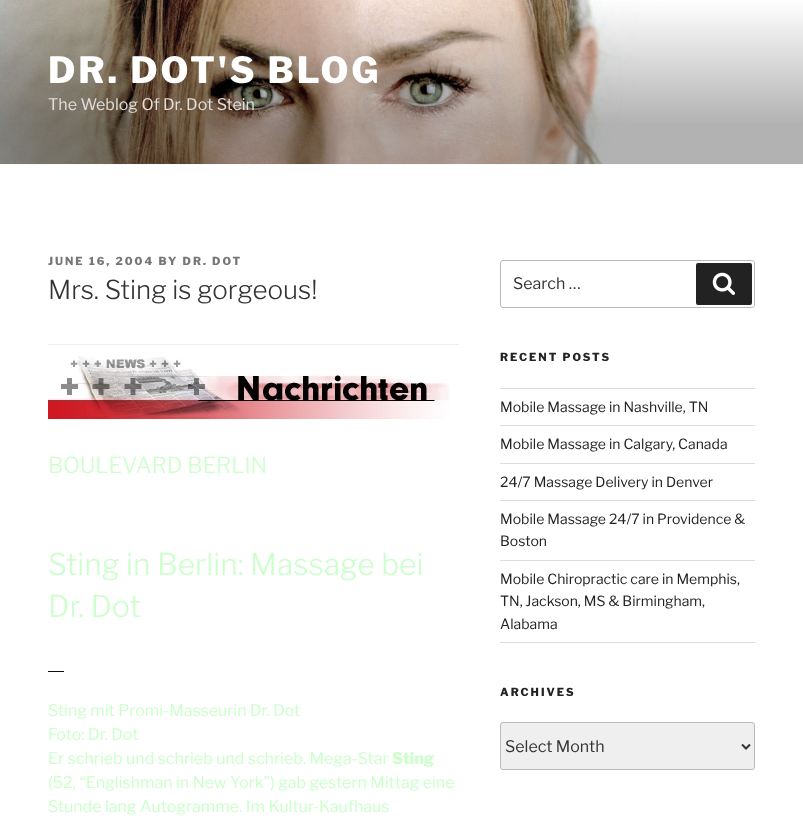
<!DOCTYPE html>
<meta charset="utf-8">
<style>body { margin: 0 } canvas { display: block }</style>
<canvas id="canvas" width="803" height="819"></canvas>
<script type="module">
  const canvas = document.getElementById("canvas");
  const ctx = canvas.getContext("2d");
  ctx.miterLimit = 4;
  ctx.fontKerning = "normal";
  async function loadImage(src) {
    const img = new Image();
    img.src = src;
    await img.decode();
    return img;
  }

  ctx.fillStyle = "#ffffff";
  ctx.fillRect(0, 0, 803, 819);
  ctx.fillStyle = "#fafafa";
  ctx.fillRect(0, 164, 803, 1);
  ctx.drawImage(await loadImage("img1.png"), 0, 0, 803, 164);
  ctx.letterSpacing = "2.9px";
  ctx.font = "100 36px Libre Franklin";
  ctx.fillStyle = "#ffffff";
  ctx.fillText("DR. DOT'S BLOG", 48, 83);
  ctx.letterSpacing = "0px";
  ctx.font = "100 16px 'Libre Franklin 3'";
  ctx.fillStyle = "#e1dedb";
  ctx.fillText("The Weblog Of", 48, 110);
  ctx.fillText("Dr. Dot Stein", 163, 110);
  ctx.letterSpacing = "2px";
  ctx.font = "100 11px Libre Franklin";
  ctx.fillStyle = "#767676";
  ctx.fillText("JUNE 16, 2004 BY DR. DOT", 48, 265);
  ctx.letterSpacing = "0px";
  ctx.font = "100 26px 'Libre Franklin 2'";
  ctx.fillStyle = "#333333";
  ctx.fillText("Mrs. Sting is gorgeous!", 48, 299);
  ctx.fillStyle = "#eeeeee";
  ctx.fillRect(48, 344, 411, 1);
  ctx.drawImage(await loadImage("img2.png"), 48, 356, 402, 63);
  ctx.font = "100 22px 'Libre Franklin 2'";
  ctx.fillStyle = "#ccffcc";
  ctx.fillText("BOULEVARD BERLIN", 48, 473);
  ctx.font = "100 30px 'Libre Franklin 2'";
  ctx.fillText("Sting in Berlin: Massage bei", 48, 575);
  ctx.fillText("Dr. Dot", 48, 617);
  ctx.fillStyle = "#0f0f0f";
  ctx.fillRect(48, 671, 16, 1);
  ctx.font = "100 16px 'Libre Franklin 3'";
  ctx.fillStyle = "#ccffcc";
  ctx.fillText("Sting mit Promi-Masseurin Dr. Dot", 48, 716);
  ctx.fillText("Foto: Dr. Dot", 48, 740);
  ctx.fillText("Er schrieb und schrieb und schrieb. Mega-Star", 48, 764);
  ctx.font = "100 16px Libre Franklin";
  ctx.fillText("Sting", 392, 764);
  ctx.font = "100 16px 'Libre Franklin 3'";
  ctx.fillText("(52, “Englishman in New York”) gab gestern Mittag eine", 48, 788);
  ctx.fillText("Stunde lang Autogramme. Im Kultur-Kaufhaus", 48, 812);
  ctx.beginPath();
  ctx.roundRect(500.5, 260.5, 254, 47, 2.5);
  ctx.strokeStyle = "#bbbbbb";
  ctx.stroke();
  ctx.fillStyle = "#333333";
  ctx.fillText("Search …", 513, 289);
  ctx.fillStyle = "#222222";
  ctx.beginPath();
  ctx.roundRect(696, 263, 56, 42, 2);
  ctx.fill();
  ctx.drawImage(await loadImage("img3.png"), 712, 272, 23, 23);
  ctx.letterSpacing = "2px";
  ctx.font = "100 11px Libre Franklin";
  ctx.fillText("RECENT POSTS", 500, 361);
  ctx.fillStyle = "#dddddd";
  ctx.fillRect(500, 388, 255, 1);
  ctx.fillRect(500, 425, 255, 1);
  ctx.letterSpacing = "0px";
  ctx.font = "100 14px 'Libre Franklin 3'";
  ctx.fillStyle = "#222222";
  ctx.fillText("Mobile Massage in Nashville, TN", 500, 412);
  ctx.fillStyle = "#dddddd";
  ctx.fillRect(500, 463, 255, 1);
  ctx.fillStyle = "#222222";
  ctx.fillText("Mobile Massage in Calgary, Canada", 500, 449);
  ctx.fillStyle = "#dddddd";
  ctx.fillRect(500, 500, 255, 1);
  ctx.fillStyle = "#222222";
  ctx.fillText("24/7 Massage Delivery in Denver", 500, 487);
  ctx.fillStyle = "#dddddd";
  ctx.fillRect(500, 560, 255, 1);
  ctx.fillStyle = "#222222";
  ctx.fillText("Mobile Massage 24/7 in Providence &", 500, 524);
  ctx.fillText("Boston", 500, 546);
  ctx.fillStyle = "#dddddd";
  ctx.fillRect(500, 642, 255, 1);
  ctx.fillStyle = "#222222";
  ctx.fillText("Mobile Chiropractic care in Memphis,", 500, 584);
  ctx.fillText("TN, Jackson, MS & Birmingham,", 500, 606);
  ctx.fillText("Alabama", 500, 629);
  ctx.letterSpacing = "2px";
  ctx.font = "100 11px Libre Franklin";
  ctx.fillText("ARCHIVES", 500, 696);
  ctx.fillStyle = "#efefef";
  ctx.beginPath();
  ctx.roundRect(500.5, 722.5, 254, 47, 2.5);
  ctx.fill();
  ctx.stroke();
  ctx.beginPath();
  ctx.moveTo(742, 744.5);
  ctx.lineTo(746, 748.5);
  ctx.lineTo(750, 744.5);
  ctx.strokeStyle = "#333333";
  ctx.lineWidth = 2;
  ctx.stroke();
  ctx.letterSpacing = "0px";
  ctx.font = "100 16px 'Libre Franklin 3'";
  ctx.fillStyle = "#333333";
  ctx.fillText("Select Month", 505, 752);
</script>
